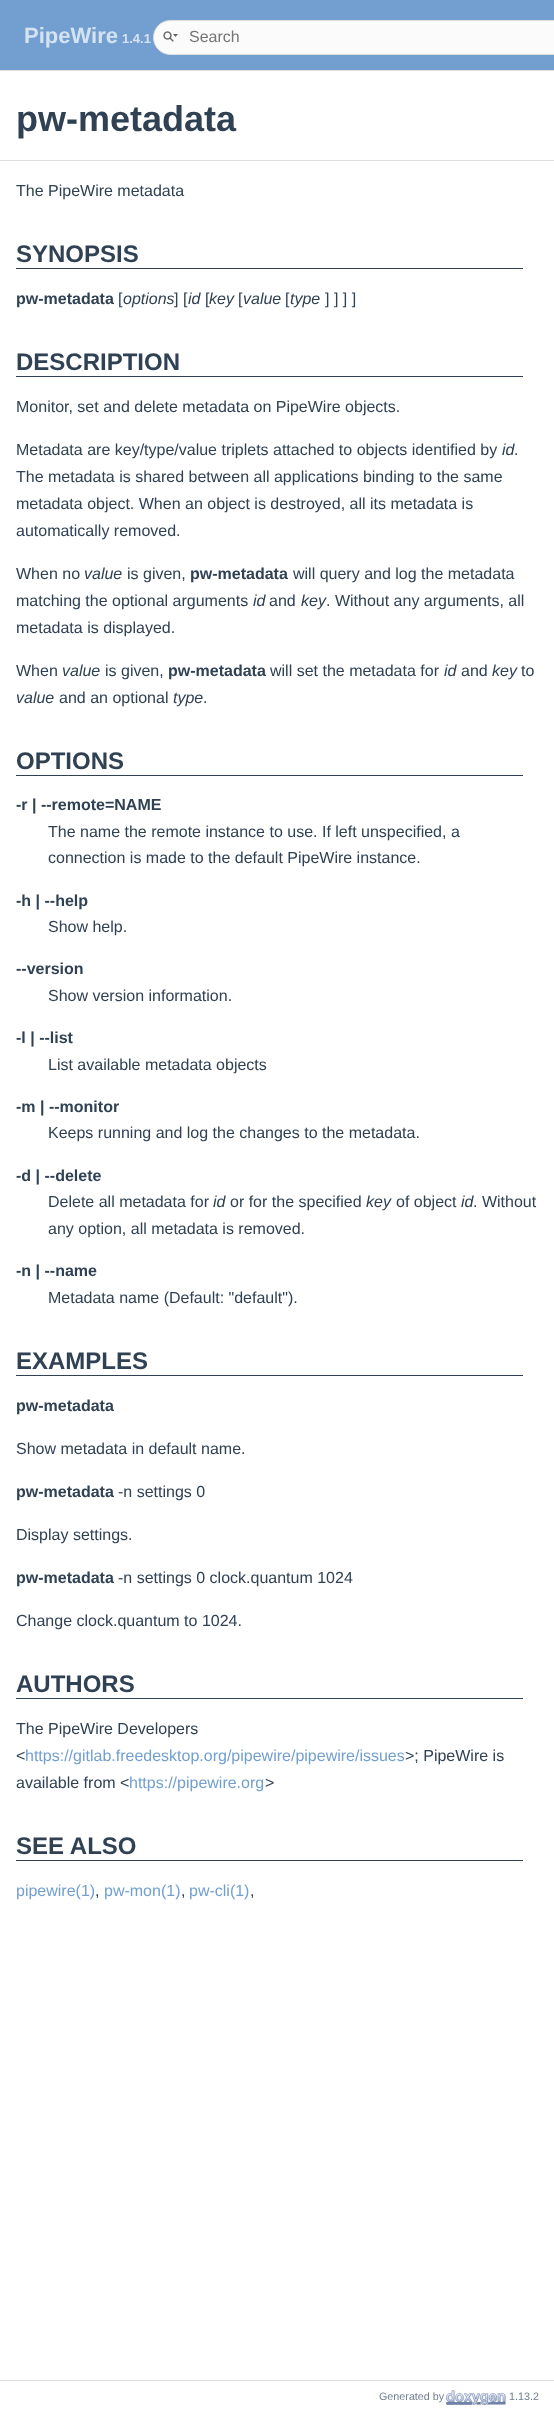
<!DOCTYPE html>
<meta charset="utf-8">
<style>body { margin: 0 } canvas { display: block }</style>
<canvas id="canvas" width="554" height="2411"></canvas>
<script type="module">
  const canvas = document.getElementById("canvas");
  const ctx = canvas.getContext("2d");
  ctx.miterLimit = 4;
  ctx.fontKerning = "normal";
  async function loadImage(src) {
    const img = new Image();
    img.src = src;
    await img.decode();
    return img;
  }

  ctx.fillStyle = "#ffffff";
  ctx.fillRect(0, 0, 554, 2411);
  ctx.fillStyle = "#729fcf";
  ctx.fillRect(0, 0, 554, 70);
  ctx.fillStyle = "#dedede";
  ctx.fillRect(0, 70, 554, 1);
  ctx.font = "bold 22px Liberation Sans";
  ctx.fillStyle = "#d5e2f1";
  ctx.fillText("PipeWire", 24, 43);
  ctx.font = "bold 13px Liberation Sans";
  ctx.fillText("1.4.1", 122, 43);
  ctx.fillStyle = "#fbfbfb";
  ctx.beginPath();
  ctx.roundRect(153.5, 20.5, 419, 34, 17);
  ctx.fill();
  ctx.strokeStyle = "#dedede";
  ctx.stroke();
  ctx.drawImage(await loadImage("img1.png"), 163, 31, 15, 11);
  ctx.font = "16px Liberation Sans";
  ctx.fillStyle = "#757575";
  ctx.fillText("Search", 189, 42);
  ctx.fillStyle = "#dedede";
  ctx.fillRect(0, 160, 554, 1);
  ctx.font = "bold 36px Liberation Sans";
  ctx.fillStyle = "#2f4153";
  ctx.fillText("pw-metadata", 16, 131);
  ctx.font = "16px Liberation Sans";
  ctx.fillText("The PipeWire metadata", 16, 196);
  ctx.fillRect(16, 268, 507, 1);
  ctx.font = "bold 24px Liberation Sans";
  ctx.fillText("SYNOPSIS", 16, 262);
  ctx.font = "bold 16px Liberation Sans";
  ctx.fillText("pw-metadata", 16, 304);
  ctx.font = "16px Liberation Sans";
  ctx.fillText("[", 118, 304);
  ctx.font = "italic 16px Liberation Sans";
  ctx.fillText("options", 123, 304);
  ctx.font = "16px Liberation Sans";
  ctx.fillText("] [", 174, 304);
  ctx.font = "italic 16px Liberation Sans";
  ctx.fillText("id", 188, 304);
  ctx.font = "16px Liberation Sans";
  ctx.fillText("[", 205, 304);
  ctx.font = "italic 16px Liberation Sans";
  ctx.fillText("key", 209, 304);
  ctx.font = "16px Liberation Sans";
  ctx.fillText("[", 238, 304);
  ctx.font = "italic 16px Liberation Sans";
  ctx.fillText("value", 243, 304);
  ctx.font = "16px Liberation Sans";
  ctx.fillText("[", 285, 304);
  ctx.font = "italic 16px Liberation Sans";
  ctx.fillText("type", 290, 304);
  ctx.font = "16px Liberation Sans";
  ctx.fillText("] ] ] ]", 325, 304);
  ctx.fillRect(16, 376, 507, 1);
  ctx.font = "bold 24px Liberation Sans";
  ctx.fillText("DESCRIPTION", 16, 370);
  ctx.font = "16px Liberation Sans";
  ctx.fillText("Monitor, set and delete metadata on PipeWire objects.", 16, 412);
  ctx.fillText("Metadata are key/type/value triplets attached to objects identified by", 16, 455);
  ctx.font = "italic 16px Liberation Sans";
  ctx.fillText("id", 502, 455);
  ctx.font = "16px Liberation Sans";
  ctx.fillText(".", 514, 455);
  ctx.fillText("The metadata is shared between all applications binding to the same", 16, 482);
  ctx.fillText("metadata object. When an object is destroyed, all its metadata is", 16, 509);
  ctx.fillText("automatically removed.", 16, 536);
  ctx.fillText("When no", 16, 579);
  ctx.font = "italic 16px Liberation Sans";
  ctx.fillText("value", 84, 579);
  ctx.font = "16px Liberation Sans";
  ctx.fillText("is given,", 127, 579);
  ctx.font = "bold 16px Liberation Sans";
  ctx.fillText("pw-metadata", 190, 579);
  ctx.font = "16px Liberation Sans";
  ctx.fillText("will query and log the metadata", 293, 579);
  ctx.fillText("matching the optional arguments", 16, 606);
  ctx.font = "italic 16px Liberation Sans";
  ctx.fillText("id", 253, 606);
  ctx.font = "16px Liberation Sans";
  ctx.fillText("and", 269, 606);
  ctx.font = "italic 16px Liberation Sans";
  ctx.fillText("key", 301, 606);
  ctx.font = "16px Liberation Sans";
  ctx.fillText(". Without any arguments, all", 326, 606);
  ctx.fillText("metadata is displayed.", 16, 633);
  ctx.fillText("When", 16, 676);
  ctx.font = "italic 16px Liberation Sans";
  ctx.fillText("value", 62, 676);
  ctx.font = "16px Liberation Sans";
  ctx.fillText("is given,", 105, 676);
  ctx.font = "bold 16px Liberation Sans";
  ctx.fillText("pw-metadata", 168, 676);
  ctx.font = "16px Liberation Sans";
  ctx.fillText("will set the metadata for", 270, 676);
  ctx.font = "italic 16px Liberation Sans";
  ctx.fillText("id", 444, 676);
  ctx.font = "16px Liberation Sans";
  ctx.fillText("and", 461, 676);
  ctx.font = "italic 16px Liberation Sans";
  ctx.fillText("key", 492, 676);
  ctx.font = "16px Liberation Sans";
  ctx.fillText("to", 521, 676);
  ctx.font = "italic 16px Liberation Sans";
  ctx.fillText("value", 16, 703);
  ctx.font = "16px Liberation Sans";
  ctx.fillText("and an optional", 59, 703);
  ctx.font = "italic 16px Liberation Sans";
  ctx.fillText("type", 173, 703);
  ctx.font = "16px Liberation Sans";
  ctx.fillText(".", 203, 703);
  ctx.fillRect(16, 775, 507, 1);
  ctx.font = "bold 24px Liberation Sans";
  ctx.fillText("OPTIONS", 16, 769);
  ctx.font = "bold 16px Liberation Sans";
  ctx.fillText("-r | --remote=NAME", 16, 810);
  ctx.font = "16px Liberation Sans";
  ctx.fillText("The name the remote instance to use. If left unspecified, a", 48, 837);
  ctx.fillText("connection is made to the default PipeWire instance.", 48, 863);
  ctx.font = "bold 16px Liberation Sans";
  ctx.fillText("-h | --help", 16, 906);
  ctx.font = "16px Liberation Sans";
  ctx.fillText("Show help.", 48, 932);
  ctx.font = "bold 16px Liberation Sans";
  ctx.fillText("--version", 16, 974);
  ctx.font = "16px Liberation Sans";
  ctx.fillText("Show version information.", 48, 1001);
  ctx.font = "bold 16px Liberation Sans";
  ctx.fillText("-l | --list", 16, 1043);
  ctx.font = "16px Liberation Sans";
  ctx.fillText("List available metadata objects", 48, 1070);
  ctx.font = "bold 16px Liberation Sans";
  ctx.fillText("-m | --monitor", 16, 1112);
  ctx.font = "16px Liberation Sans";
  ctx.fillText("Keeps running and log the changes to the metadata.", 48, 1138);
  ctx.font = "bold 16px Liberation Sans";
  ctx.fillText("-d | --delete", 16, 1181);
  ctx.font = "16px Liberation Sans";
  ctx.fillText("Delete all metadata for", 48, 1207);
  ctx.font = "italic 16px Liberation Sans";
  ctx.fillText("id", 213, 1207);
  ctx.font = "16px Liberation Sans";
  ctx.fillText("or for the specified", 230, 1207);
  ctx.font = "italic 16px Liberation Sans";
  ctx.fillText("key", 366, 1207);
  ctx.font = "16px Liberation Sans";
  ctx.fillText("of object", 396, 1207);
  ctx.font = "italic 16px Liberation Sans";
  ctx.fillText("id", 461, 1207);
  ctx.font = "16px Liberation Sans";
  ctx.fillText(". Without", 473, 1207);
  ctx.fillText("any option, all metadata is removed.", 48, 1234);
  ctx.font = "bold 16px Liberation Sans";
  ctx.fillText("-n | --name", 16, 1276);
  ctx.font = "16px Liberation Sans";
  ctx.fillText("Metadata name (Default: \"default\").", 48, 1303);
  ctx.fillRect(16, 1375, 507, 1);
  ctx.font = "bold 24px Liberation Sans";
  ctx.fillText("EXAMPLES", 16, 1369);
  ctx.font = "bold 16px Liberation Sans";
  ctx.fillText("pw-metadata", 16, 1411);
  ctx.font = "16px Liberation Sans";
  ctx.fillText("Show metadata in default name.", 16, 1454);
  ctx.font = "bold 16px Liberation Sans";
  ctx.fillText("pw-metadata", 16, 1497);
  ctx.font = "16px Liberation Sans";
  ctx.fillText("-n settings 0", 118, 1497);
  ctx.fillText("Display settings.", 16, 1540);
  ctx.font = "bold 16px Liberation Sans";
  ctx.fillText("pw-metadata", 16, 1583);
  ctx.font = "16px Liberation Sans";
  ctx.fillText("-n settings 0 clock.quantum 1024", 118, 1583);
  ctx.fillText("Change clock.quantum to 1024.", 16, 1626);
  ctx.fillRect(16, 1698, 507, 1);
  ctx.font = "bold 24px Liberation Sans";
  ctx.fillText("AUTHORS", 16, 1692);
  ctx.font = "16px Liberation Sans";
  ctx.fillText("The PipeWire Developers", 16, 1734);
  ctx.fillText("<", 16, 1761);
  ctx.fillStyle = "#729fcf";
  ctx.fillText("https://gitlab.freedesktop.org/pipewire/pipewire/issues", 25, 1761);
  ctx.fillStyle = "#2f4153";
  ctx.fillText(">; PipeWire is", 405, 1761);
  ctx.fillText("available from <", 16, 1788);
  ctx.fillStyle = "#729fcf";
  ctx.fillText("https://pipewire.org", 129, 1788);
  ctx.fillStyle = "#2f4153";
  ctx.fillText(">", 265, 1788);
  ctx.fillRect(16, 1860, 507, 1);
  ctx.font = "bold 24px Liberation Sans";
  ctx.fillText("SEE ALSO", 16, 1854);
  ctx.font = "16px Liberation Sans";
  ctx.fillStyle = "#729fcf";
  ctx.fillText("pipewire(1)", 16, 1896);
  ctx.fillStyle = "#2f4153";
  ctx.fillText(",", 95, 1896);
  ctx.fillStyle = "#729fcf";
  ctx.fillText("pw-mon(1)", 104, 1896);
  ctx.fillStyle = "#2f4153";
  ctx.fillText(",", 181, 1896);
  ctx.fillStyle = "#729fcf";
  ctx.fillText("pw-cli(1)", 189, 1896);
  ctx.fillStyle = "#2f4153";
  ctx.fillText(",", 250, 1896);
  ctx.fillStyle = "#dedede";
  ctx.fillRect(0, 2380, 554, 1);
  ctx.font = "10.75px Liberation Sans";
  ctx.fillStyle = "#6f7e8e";
  ctx.fillText("Generated by", 379, 2400);
  ctx.drawImage(await loadImage("img2.png"), 446, 2390, 60, 16);
  ctx.fillText("1.13.2", 509, 2400);
</script>
